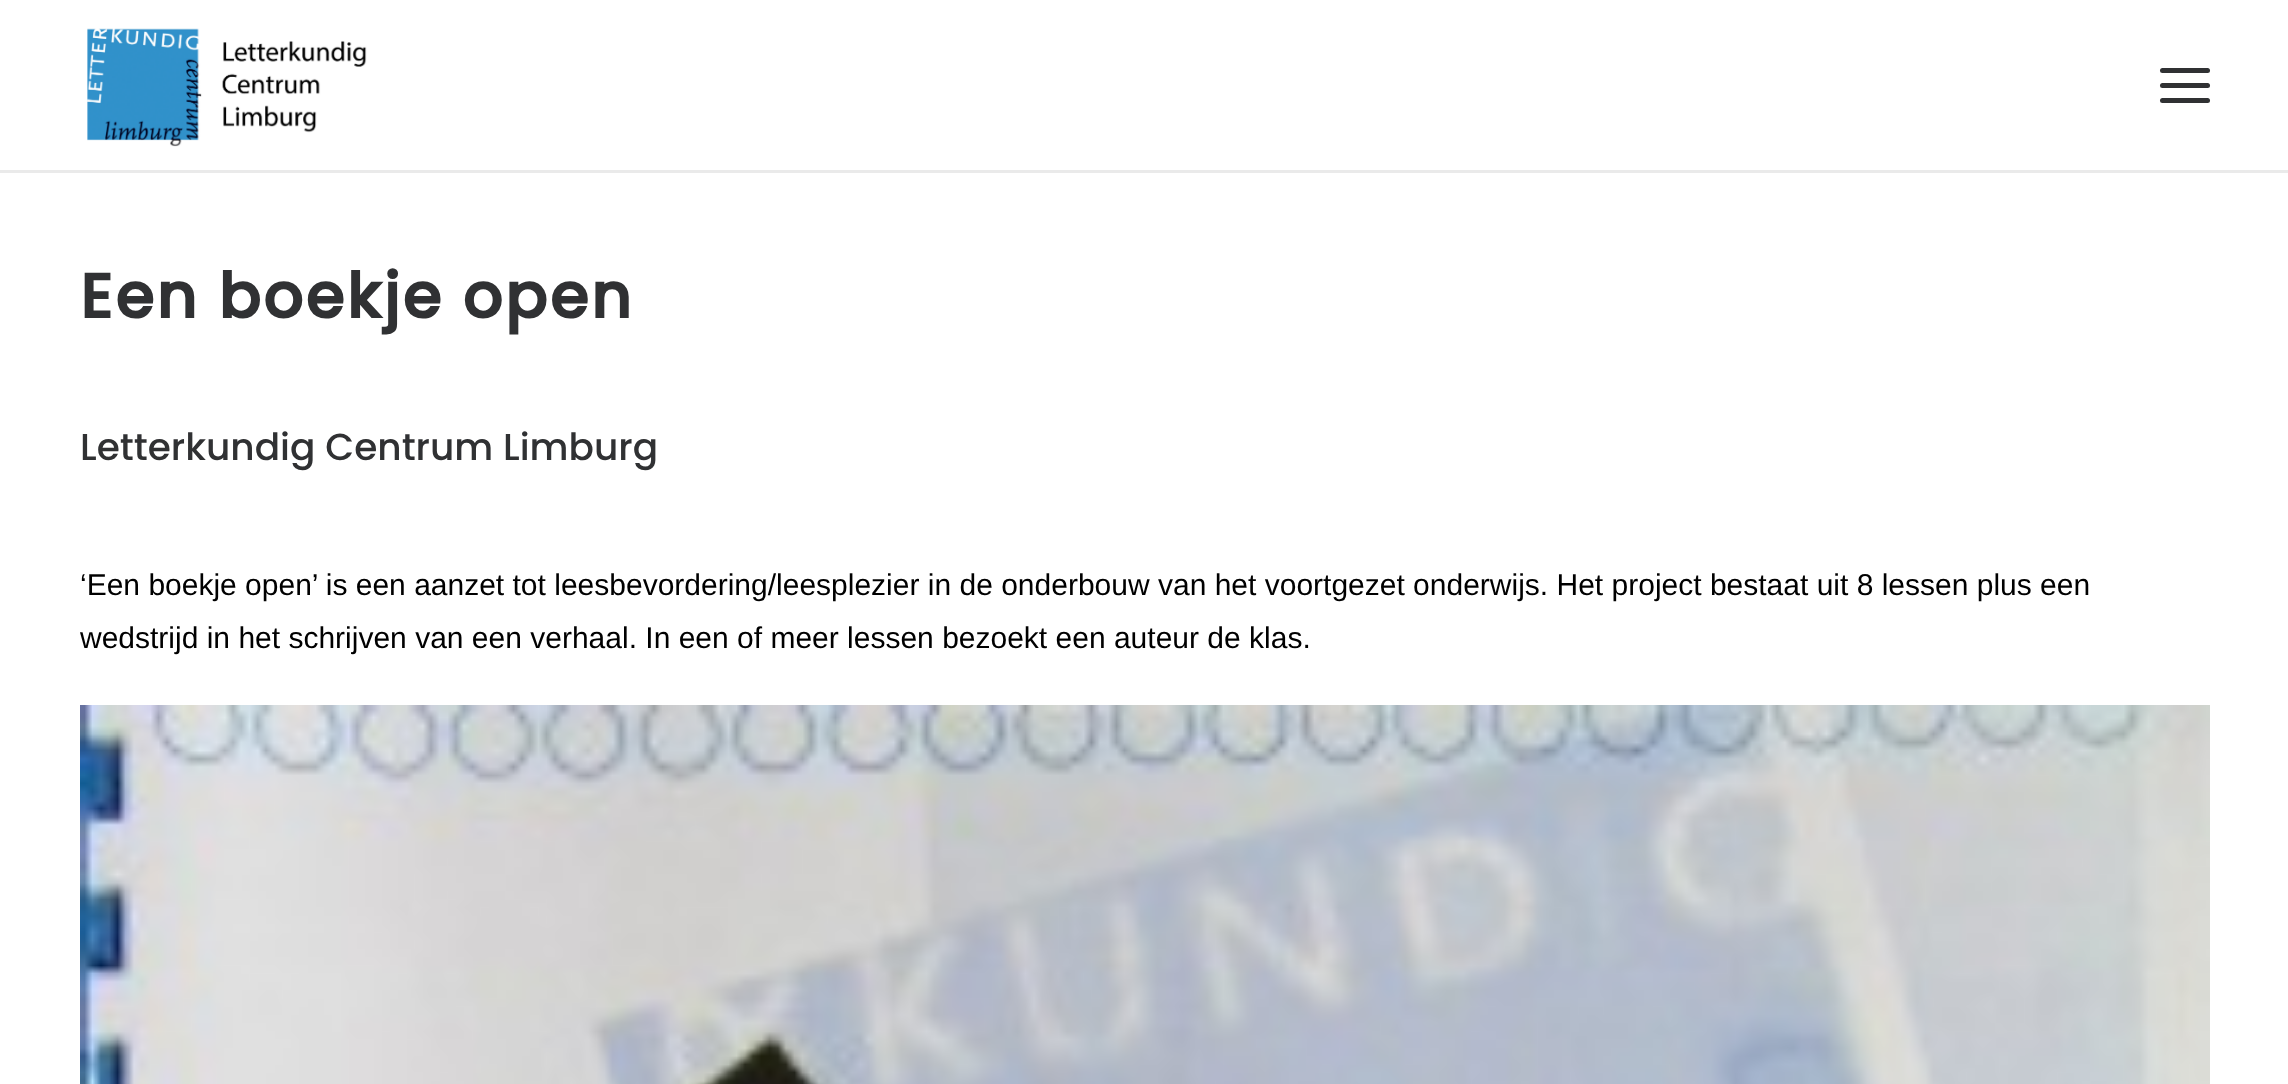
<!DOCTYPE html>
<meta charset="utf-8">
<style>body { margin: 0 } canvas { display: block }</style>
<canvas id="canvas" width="2288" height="1084"></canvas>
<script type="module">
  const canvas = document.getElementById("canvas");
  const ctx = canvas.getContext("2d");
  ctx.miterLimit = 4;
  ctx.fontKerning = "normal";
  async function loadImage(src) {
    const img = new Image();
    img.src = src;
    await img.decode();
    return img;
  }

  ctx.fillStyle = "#ffffff";
  ctx.fillRect(0, 0, 2288, 1084);
  ctx.fillStyle = "#eaeaea";
  ctx.fillRect(0, 170, 2288, 3);
  ctx.drawImage(await loadImage("img1.png"), 87, 28, 280, 119);
  ctx.fillStyle = "#303133";
  ctx.beginPath();
  ctx.roundRect(2160, 83, 50, 5, 2.5);
  ctx.fill();
  ctx.beginPath();
  ctx.roundRect(2160, 68, 50, 5, 2.5);
  ctx.fill();
  ctx.beginPath();
  ctx.roundRect(2160, 98, 50, 5, 2.5);
  ctx.fill();
  ctx.letterSpacing = "2.5px";
  ctx.font = "bold 62.5px Poppins";
  ctx.fillText("Een boekje open", 80, 318);
  ctx.letterSpacing = "0px";
  ctx.font = "500 37.5px Poppins";
  ctx.fillText("Letterkundig Centrum Limburg", 80, 460);
  ctx.font = "30px Liberation Sans";
  ctx.fillStyle = "#000000";
  ctx.fillText("‘Een boekje open’ is een aanzet tot leesbevordering/leesplezier in de onderbouw van het voortgezet onderwijs. Het project bestaat uit 8 lessen plus een", 80, 595);
  ctx.fillText("wedstrijd in het schrijven van een verhaal. In een of meer lessen bezoekt een auteur de klas.", 80, 648);
  ctx.drawImage(await loadImage("img2.png"), 80, 705, 2130, 379);
</script>
